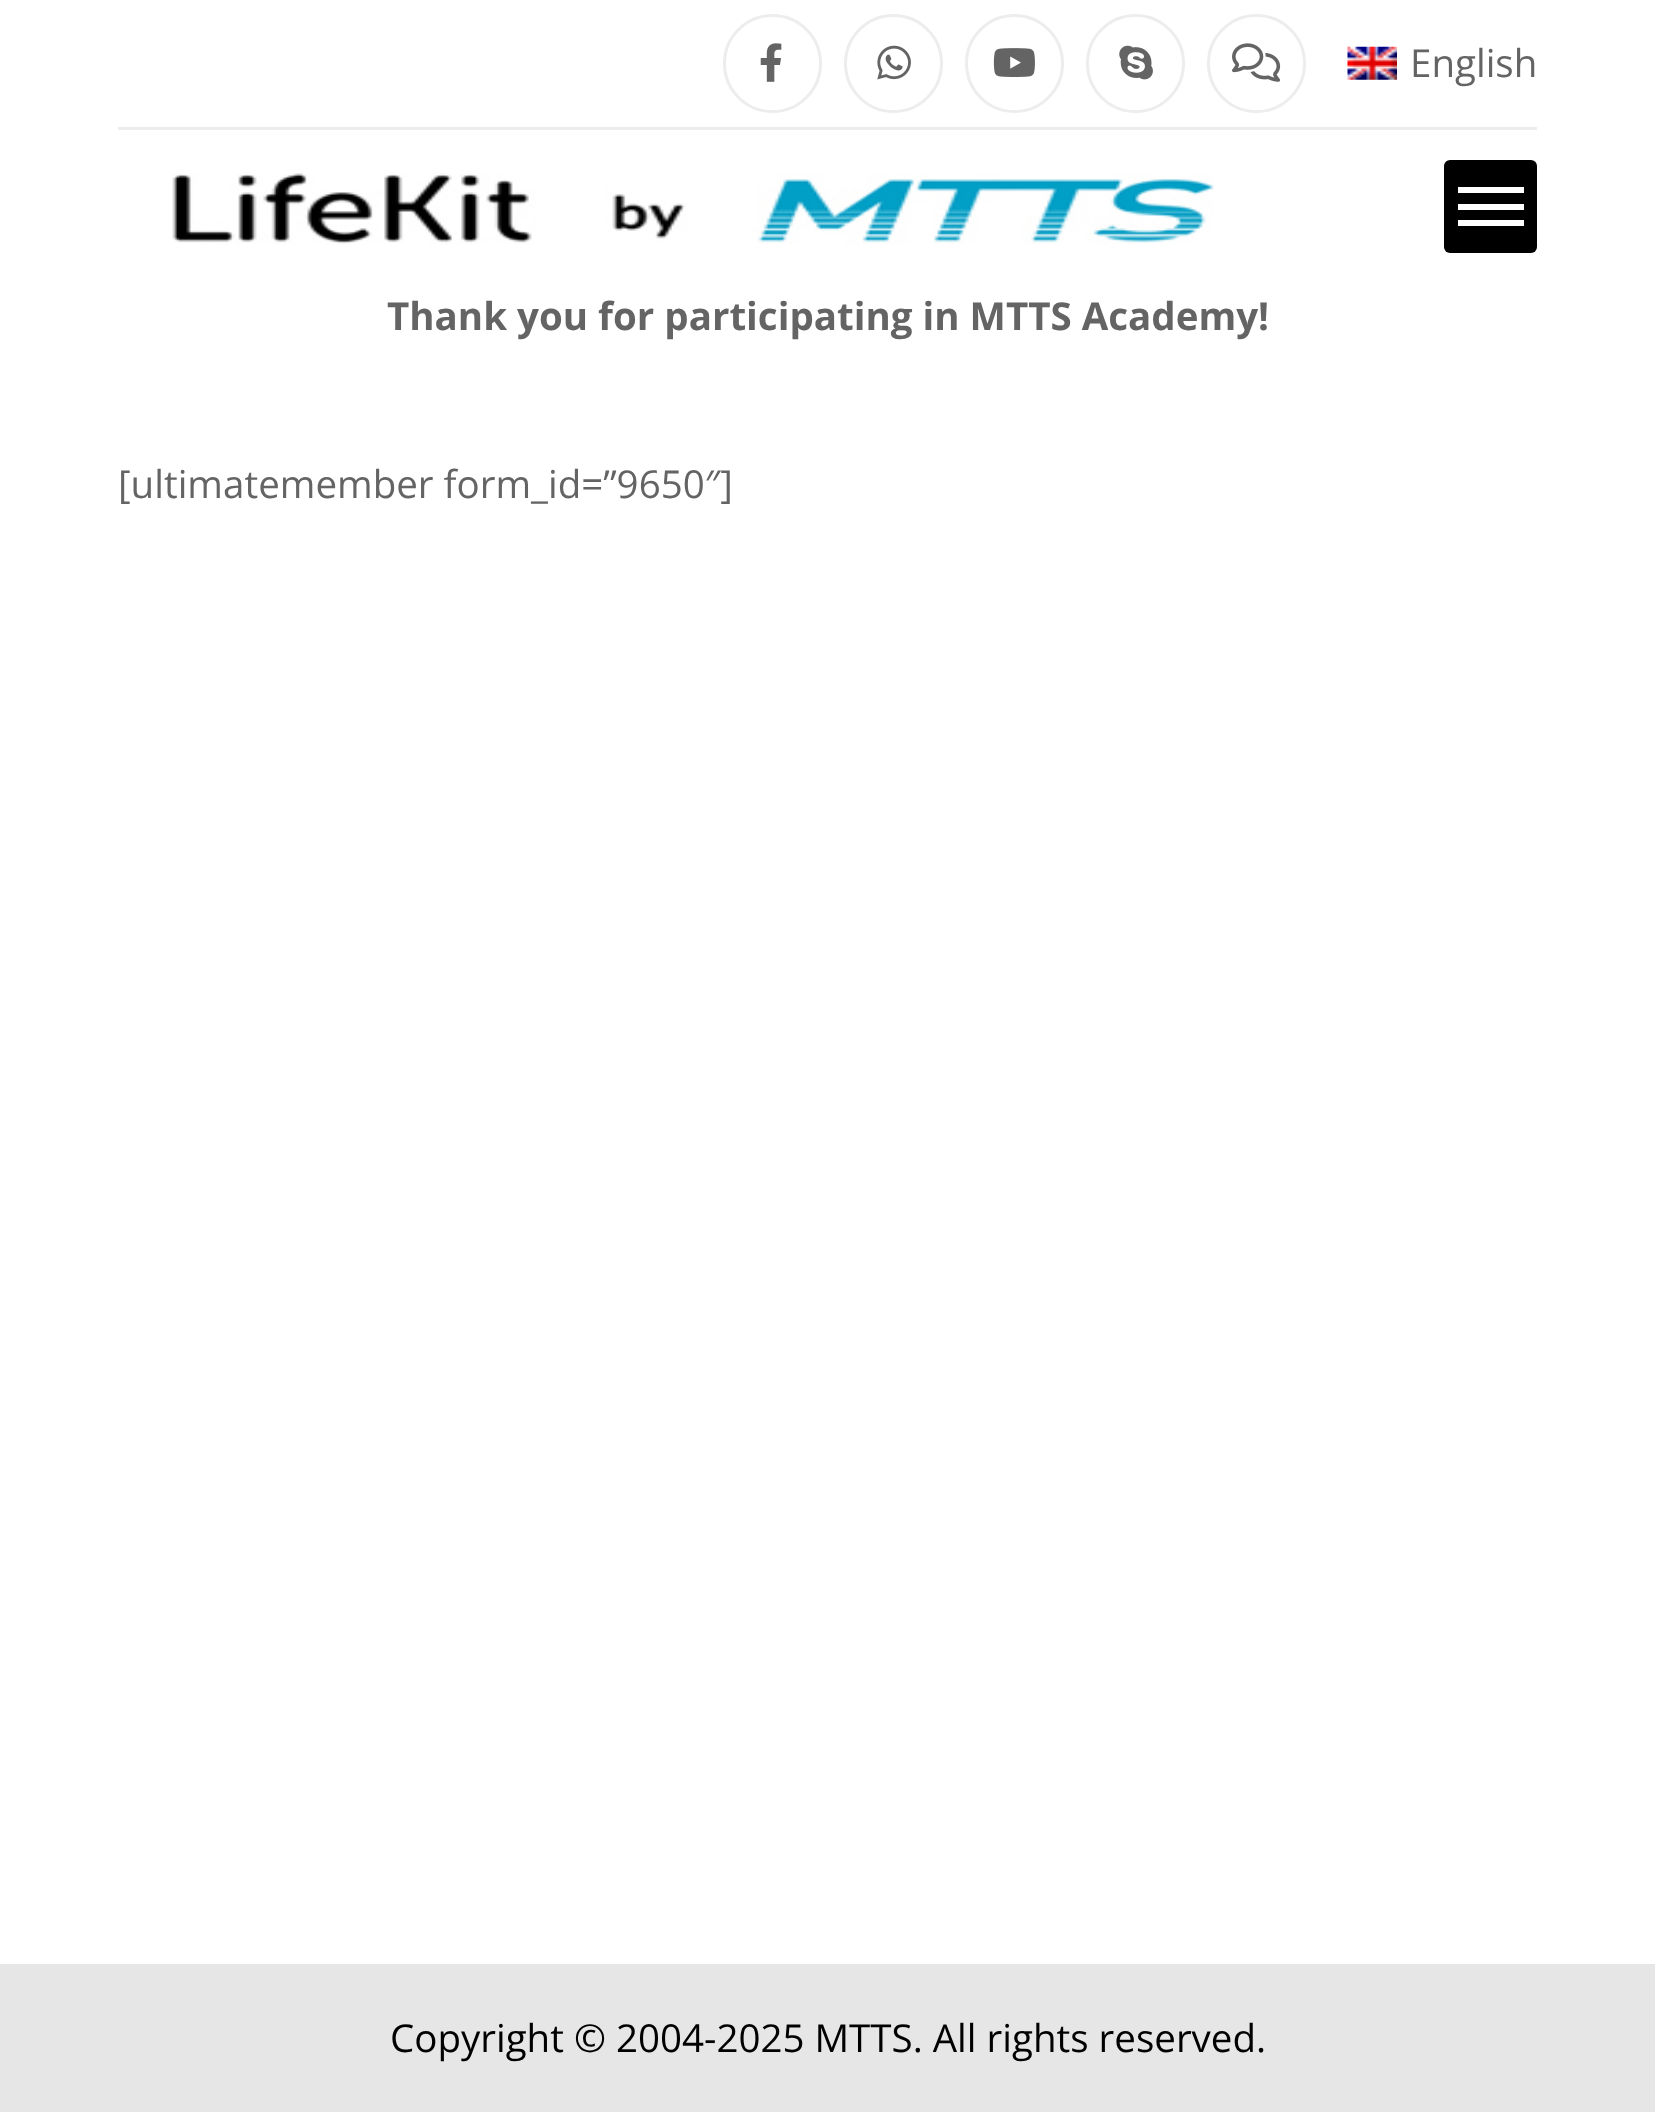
<!DOCTYPE html>
<meta charset="utf-8">
<style>body { margin: 0 } canvas { display: block }</style>
<canvas id="canvas" width="1655" height="2112"></canvas>
<script type="module">
  const canvas = document.getElementById("canvas");
  const ctx = canvas.getContext("2d");
  ctx.miterLimit = 4;
  ctx.fontKerning = "normal";
  async function loadImage(src) {
    const img = new Image();
    img.src = src;
    await img.decode();
    return img;
  }

  ctx.fillStyle = "#ffffff";
  ctx.fillRect(0, 0, 1655, 2112);
  ctx.fillStyle = "#ededed";
  ctx.fillRect(118, 127, 1419, 3);
  ctx.beginPath();
  ctx.arc(772.5, 63.5, 48, 0, Math.PI * 2);
  ctx.strokeStyle = "#ededed";
  ctx.lineWidth = 3;
  ctx.stroke();
  ctx.drawImage(await loadImage("img1.png"), 760, 43, 22, 39);
  ctx.beginPath();
  ctx.arc(893.5, 63.5, 48, 0, Math.PI * 2);
  ctx.stroke();
  ctx.drawImage(await loadImage("img2.png"), 877, 45, 34, 35);
  ctx.beginPath();
  ctx.arc(1014.5, 63.5, 48, 0, Math.PI * 2);
  ctx.stroke();
  ctx.drawImage(await loadImage("img3.png"), 993, 48, 42, 29);
  ctx.beginPath();
  ctx.arc(1135.5, 63.5, 48, 0, Math.PI * 2);
  ctx.stroke();
  ctx.drawImage(await loadImage("img4.png"), 1119, 45, 34, 35);
  ctx.beginPath();
  ctx.arc(1256.5, 63.5, 48, 0, Math.PI * 2);
  ctx.stroke();
  ctx.drawImage(await loadImage("img5.png"), 1232, 43, 49, 39);
  ctx.drawImage(await loadImage("img6.png"), 1347, 46, 50, 34);
  ctx.font = "38.5px Open Sans";
  ctx.fillStyle = "#646464";
  ctx.fillText("English", 1410, 77);
  ctx.drawImage(await loadImage("img7.png"), 172, 173, 1042, 72);
  ctx.fillStyle = "#000000";
  ctx.beginPath();
  ctx.roundRect(1444, 160, 93, 93, 6);
  ctx.fill();
  ctx.fillStyle = "#ffffff";
  ctx.fillRect(1458, 204, 66, 6);
  ctx.fillRect(1458, 187, 66, 6);
  ctx.fillRect(1458, 220, 66, 6);
  ctx.font = "bold 38.5px Open Sans";
  ctx.fillStyle = "#646464";
  ctx.fillText("Thank you for participating in MTTS Academy!", 387, 330);
  ctx.font = "38.5px Open Sans";
  ctx.fillText("[ultimatemember form_id=”9650″]", 118, 498);
  ctx.fillStyle = "#e6e6e6";
  ctx.fillRect(0, 1964, 1655, 148);
  ctx.fillStyle = "#000000";
  ctx.fillText("Copyright © 2004-2025 MTTS. All rights reserved.", 390, 2052);
</script>
